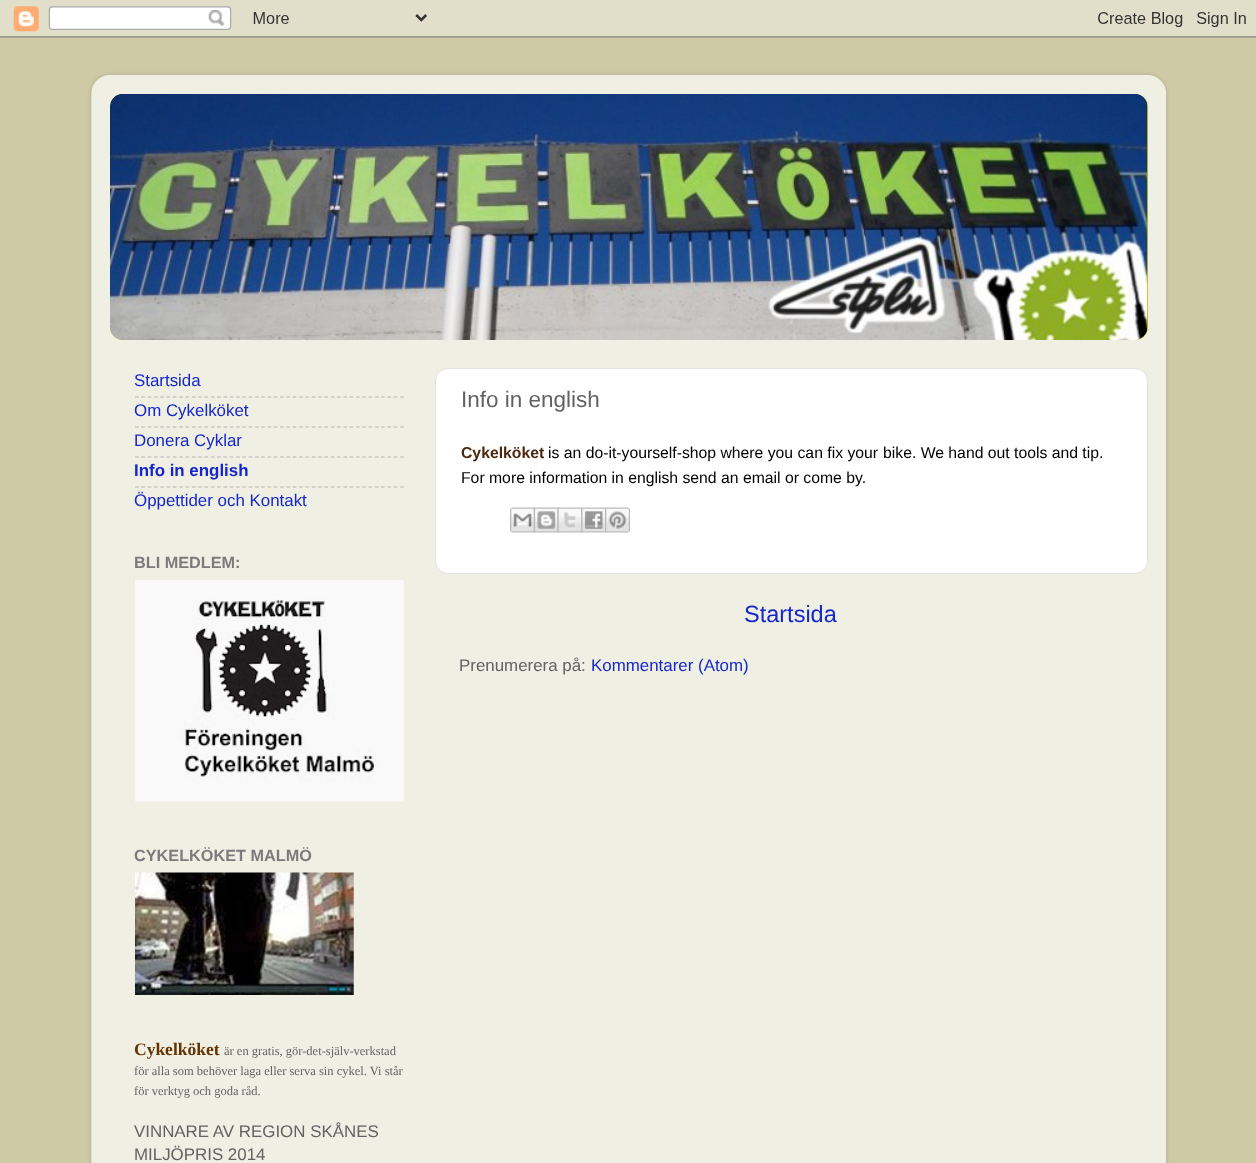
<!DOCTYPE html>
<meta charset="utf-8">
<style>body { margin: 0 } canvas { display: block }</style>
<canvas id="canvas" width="1256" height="1163"></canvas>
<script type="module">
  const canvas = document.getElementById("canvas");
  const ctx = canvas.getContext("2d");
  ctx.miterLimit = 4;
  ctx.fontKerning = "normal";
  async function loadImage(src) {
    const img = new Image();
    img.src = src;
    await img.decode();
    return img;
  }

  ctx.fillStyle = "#cecaa5";
  ctx.fillRect(0, 0, 1256, 1163);
  ctx.drawImage(await loadImage("img1.png"), 0, 0, 1256, 38);
  ctx.save();
  ctx.beginPath();
  ctx.moveTo(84, 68);
  ctx.lineTo(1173, 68);
  ctx.lineTo(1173, 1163);
  ctx.lineTo(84, 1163);
  ctx.closePath();
  ctx.moveTo(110, 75);
  ctx.lineTo(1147, 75);
  ctx.bezierCurveTo(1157.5, 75, 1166, 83.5, 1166, 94);
  ctx.lineTo(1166, 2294);
  ctx.bezierCurveTo(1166, 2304.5, 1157.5, 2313, 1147, 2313);
  ctx.lineTo(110, 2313);
  ctx.bezierCurveTo(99.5, 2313, 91, 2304.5, 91, 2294);
  ctx.lineTo(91, 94);
  ctx.bezierCurveTo(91, 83.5, 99.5, 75, 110, 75);
  ctx.closePath();
  ctx.clip("evenodd");
  ctx.fillStyle = "rgba(0, 0, 0, 0.15)";
  ctx.filter = "blur(2px)";
  ctx.beginPath();
  ctx.roundRect(91, 75, 1075, 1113, 19);
  ctx.fill();
  ctx.filter = "none";
  ctx.restore();
  ctx.drawImage(await loadImage("img2.png"), 91, 75, 1076, 1088);
  ctx.fillStyle = "#cbb916";
  ctx.beginPath();
  ctx.roundRect(110, 94, 1038, 246, 13);
  ctx.fill();
  ctx.drawImage(await loadImage("img3.png"), 110, 94, 1038, 54);
  ctx.drawImage(await loadImage("img4.png"), 110, 94, 1038, 246);
  ctx.font = "16.9px Liberation Sans";
  ctx.fillStyle = "#1527cb";
  ctx.fillText("Startsida", 134, 386);
  ctx.beginPath();
  ctx.moveTo(135, 397);
  ctx.lineTo(404, 397);
  ctx.strokeStyle = "#b8b8b2";
  ctx.lineWidth = 1.2;
  ctx.setLineDash([3.75, 2.56]);
  ctx.stroke();
  ctx.fillText("Om Cykelköket", 134, 416);
  ctx.beginPath();
  ctx.moveTo(135, 427);
  ctx.lineTo(404, 427);
  ctx.stroke();
  ctx.fillText("Donera Cyklar", 134, 446);
  ctx.beginPath();
  ctx.moveTo(135, 457);
  ctx.lineTo(404, 457);
  ctx.stroke();
  ctx.font = "bold 16.9px Liberation Sans";
  ctx.fillText("Info in english", 134, 476);
  ctx.beginPath();
  ctx.moveTo(135, 487);
  ctx.lineTo(404, 487);
  ctx.stroke();
  ctx.font = "16.9px Liberation Sans";
  ctx.fillText("Öppettider och Kontakt", 134, 506);
  ctx.font = "bold 16.25px Liberation Sans";
  ctx.fillStyle = "#7b7b7b";
  ctx.fillText("BLI MEDLEM:", 134, 568);
  ctx.drawImage(await loadImage("img5.png"), 135, 580, 269, 222);
  ctx.fillText("CYKELKÖKET MALMÖ", 134, 861);
  ctx.drawImage(await loadImage("img6.png"), 135, 872, 219, 123);
  ctx.font = "bold 17.5px Liberation Serif";
  ctx.fillStyle = "#663300";
  ctx.fillText("Cykelköket", 134, 1055);
  ctx.font = "12.5px Liberation Serif";
  ctx.fillStyle = "#626262";
  ctx.fillText("är en gratis, gör-det-själv-verkstad", 224, 1055);
  ctx.fillText("för alla som behöver laga eller serva sin cykel. Vi står", 134, 1075);
  ctx.fillText("för verktyg och goda råd.", 134, 1095);
  ctx.font = "16.9px Liberation Sans";
  ctx.fillText("VINNARE AV REGION SKÅNES", 134, 1137);
  ctx.fillText("MILJÖPRIS 2014", 134, 1160);
  ctx.fillStyle = "#ffffff";
  ctx.beginPath();
  ctx.roundRect(435.5, 368.5, 712, 205, 12.5);
  ctx.fill();
  ctx.strokeStyle = "#e2e2e2";
  ctx.lineWidth = 1;
  ctx.setLineDash([]);
  ctx.stroke();
  ctx.font = "22.5px Liberation Sans";
  ctx.fillStyle = "#626262";
  ctx.fillText("Info in english", 461, 407);
  ctx.font = "bold 15.75px Liberation Sans";
  ctx.fillStyle = "#4c2810";
  ctx.fillText("Cykelköket", 461, 458);
  ctx.font = "15.75px Liberation Sans";
  ctx.fillStyle = "#000000";
  ctx.fillText("is an do-it-yourself-shop where you can fix your", 548, 458);
  ctx.fillText("bike. We hand out tools and tip.", 883, 458);
  ctx.fillText("For more information in english send an email or come by.", 461, 483);
  ctx.drawImage(await loadImage("img7.png"), 510, 507, 25, 26);
  ctx.drawImage(await loadImage("img8.png"), 533, 507, 26, 26);
  ctx.drawImage(await loadImage("img9.png"), 557, 507, 26, 26);
  ctx.drawImage(await loadImage("img10.png"), 581, 507, 26, 26);
  ctx.drawImage(await loadImage("img11.png"), 605, 507, 25, 26);
  ctx.font = "23.5px Liberation Sans";
  ctx.fillStyle = "#1527cb";
  ctx.fillText("Startsida", 744, 622);
  ctx.font = "16.9px Liberation Sans";
  ctx.fillStyle = "#626262";
  ctx.fillText("Prenumerera på:", 459, 671);
  ctx.fillStyle = "#1527cb";
  ctx.fillText("Kommentarer (Atom)", 591, 671);
</script>
